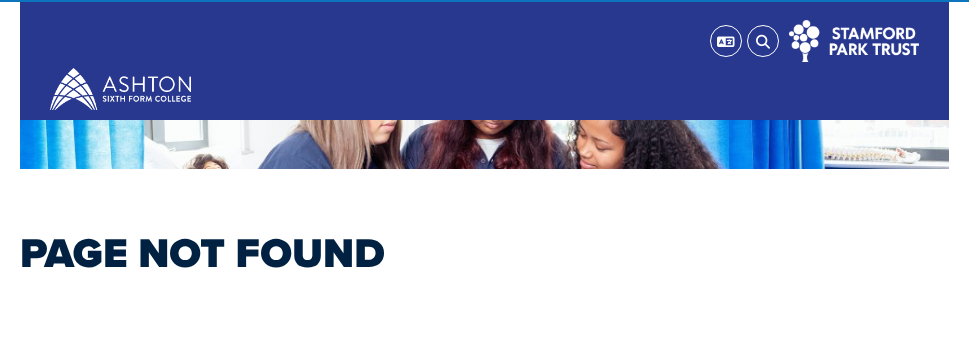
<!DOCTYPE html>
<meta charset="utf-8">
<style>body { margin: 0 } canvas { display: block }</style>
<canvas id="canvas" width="969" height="338"></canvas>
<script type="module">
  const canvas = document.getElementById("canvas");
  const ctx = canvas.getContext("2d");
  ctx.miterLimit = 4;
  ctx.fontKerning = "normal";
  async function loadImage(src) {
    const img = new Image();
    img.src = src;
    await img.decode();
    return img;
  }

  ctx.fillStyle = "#ffffff";
  ctx.fillRect(0, 0, 969, 338);
  ctx.fillStyle = "#0d75bd";
  ctx.fillRect(0, 0, 969, 2);
  ctx.fillStyle = "#29388f";
  ctx.fillRect(20, 2, 929, 118);
  ctx.beginPath();
  ctx.arc(726, 41, 15.5, 0, Math.PI * 2);
  ctx.strokeStyle = "#ffffff";
  ctx.stroke();
  ctx.drawImage(await loadImage("img1.png"), 717, 36, 18, 11);
  ctx.beginPath();
  ctx.arc(763, 41, 15.5, 0, Math.PI * 2);
  ctx.stroke();
  ctx.drawImage(await loadImage("img2.png"), 756, 34, 14, 15);
  ctx.drawImage(await loadImage("img3.png"), 789, 20, 130, 42);
  ctx.drawImage(await loadImage("img4.png"), 50, 68, 141, 42);
  ctx.drawImage(await loadImage("img5.png"), 20, 120, 929, 49);
  ctx.font = "900 41.5px Proxima Nova";
  ctx.fillStyle = "#002142";
  ctx.fillText("PAGE NOT FOUND", 20, 267);
</script>
